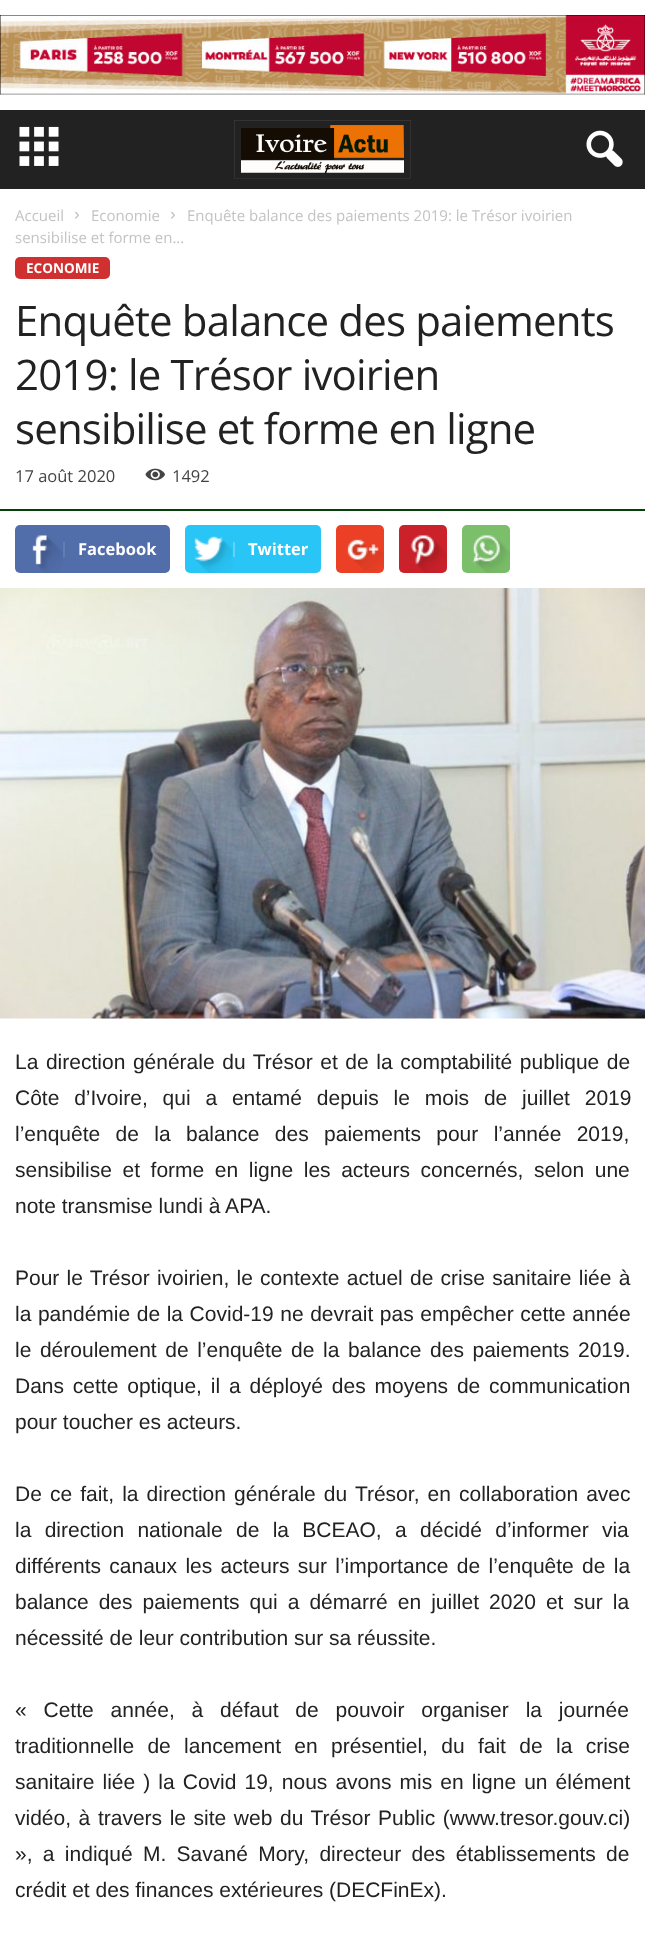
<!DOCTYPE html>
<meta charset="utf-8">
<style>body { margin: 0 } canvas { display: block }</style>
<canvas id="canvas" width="645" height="1950"></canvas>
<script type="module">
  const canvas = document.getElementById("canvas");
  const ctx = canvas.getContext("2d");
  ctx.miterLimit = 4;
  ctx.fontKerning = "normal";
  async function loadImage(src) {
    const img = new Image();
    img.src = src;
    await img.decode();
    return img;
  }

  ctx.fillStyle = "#ffffff";
  ctx.fillRect(0, 0, 645, 1950);
  ctx.drawImage(await loadImage("img1.png"), 0, 15, 645, 80);
  ctx.fillStyle = "#222222";
  ctx.fillRect(0, 110, 645, 79);
  ctx.drawImage(await loadImage("img2.png"), 19, 126, 40, 40);
  ctx.drawImage(await loadImage("img3.png"), 234, 120, 177, 59);
  ctx.drawImage(await loadImage("img4.png"), 586, 130, 37, 37);
  ctx.font = "15px Open Sans";
  ctx.fillStyle = "#c3c3c3";
  ctx.fillText("Accueil", 15, 221);
  ctx.drawImage(await loadImage("img5.png"), 75, 211, 4, 8);
  ctx.fillText("Economie", 91, 221);
  ctx.drawImage(await loadImage("img5.png"), 171, 211, 4, 8);
  ctx.fillText("Enquête balance des paiements 2019: le Trésor ivoirien", 187, 221);
  ctx.fillText("sensibilise et forme en...", 15, 243);
  ctx.fillStyle = "#d13030";
  ctx.beginPath();
  ctx.roundRect(15, 257, 95, 22, 5);
  ctx.fill();
  ctx.font = "bold 13.5px Open Sans";
  ctx.fillStyle = "#ffffff";
  ctx.fillText("ECONOMIE", 26, 273);
  ctx.letterSpacing = "-0.85px";
  ctx.font = "42px Open Sans";
  ctx.fillStyle = "#222222";
  ctx.fillText("Enquête balance des paiements", 15, 336);
  ctx.fillText("2019: le Trésor ivoirien", 15, 390);
  ctx.fillText("sensibilise et forme en ligne", 15, 444);
  ctx.letterSpacing = "0px";
  ctx.font = "16.5px Open Sans";
  ctx.fillStyle = "#444444";
  ctx.fillText("17 août 2020", 15, 482);
  ctx.drawImage(await loadImage("img6.png"), 145, 468, 20, 13);
  ctx.fillText("1492", 172, 482);
  ctx.fillStyle = "#044108";
  ctx.fillRect(0, 509, 645, 2);
  ctx.fillStyle = "#516eab";
  ctx.beginPath();
  ctx.roundRect(15, 525, 155, 48, 5);
  ctx.fill();
  ctx.drawImage(await loadImage("img7.png"), 32, 535, 31, 38);
  ctx.fillStyle = "#627db3";
  ctx.fillRect(63, 542, 2, 15);
  ctx.font = "bold 16.5px Open Sans";
  ctx.fillStyle = "#ffffff";
  ctx.fillText("Facebook", 78, 555);
  ctx.fillStyle = "#29c5f6";
  ctx.beginPath();
  ctx.roundRect(185, 525, 136, 48, 5);
  ctx.fill();
  ctx.drawImage(await loadImage("img8.png"), 194, 536, 39, 37);
  ctx.fillStyle = "#5fd4f8";
  ctx.fillRect(233, 542, 2, 15);
  ctx.fillStyle = "#ffffff";
  ctx.fillText("Twitter", 248, 555);
  ctx.fillStyle = "#eb4026";
  ctx.beginPath();
  ctx.roundRect(336, 525, 48, 48, 5);
  ctx.fill();
  ctx.drawImage(await loadImage("img9.png"), 347, 539, 37, 32);
  ctx.fillStyle = "#ca212a";
  ctx.beginPath();
  ctx.roundRect(399, 525, 48, 48, 5);
  ctx.fill();
  ctx.drawImage(await loadImage("img10.png"), 410, 535, 37, 38);
  ctx.fillStyle = "#7bbf6a";
  ctx.beginPath();
  ctx.roundRect(462, 525, 48, 48, 5);
  ctx.fill();
  ctx.drawImage(await loadImage("img11.png"), 472, 535, 38, 38);
  ctx.drawImage(await loadImage("img12.png"), 0, 588, 645, 431);
  ctx.wordSpacing = "1.75px";
  ctx.font = "21px Liberation Sans";
  ctx.fillStyle = "#222222";
  ctx.fillText("La direction générale du Trésor et de la comptabilité publique de", 15, 1069);
  ctx.wordSpacing = "9px";
  ctx.fillText("Côte d’Ivoire, qui a entamé depuis le mois de juillet 2019", 15, 1105);
  ctx.wordSpacing = "9.5px";
  ctx.fillText("l’enquête de la balance des paiements pour l’année 2019,", 15, 1141);
  ctx.wordSpacing = "4.75px";
  ctx.fillText("sensibilise et forme en ligne les acteurs concernés, selon une", 15, 1177);
  ctx.wordSpacing = "0px";
  ctx.fillText("note transmise lundi à APA.", 15, 1213);
  ctx.wordSpacing = "1.4px";
  ctx.fillText("Pour le Trésor ivoirien, le contexte actuel de crise sanitaire liée à", 15, 1285);
  ctx.wordSpacing = "0.75px";
  ctx.fillText("la pandémie de la Covid-19 ne devrait pas empêcher cette année", 15, 1321);
  ctx.wordSpacing = "2.75px";
  ctx.fillText("le déroulement de l’enquête de la balance des paiements 2019.", 15, 1357);
  ctx.wordSpacing = "3px";
  ctx.fillText("Dans cette optique, il a déployé des moyens de communication", 15, 1393);
  ctx.wordSpacing = "0px";
  ctx.fillText("pour toucher es acteurs.", 15, 1429);
  ctx.wordSpacing = "2.25px";
  ctx.fillText("De ce fait, la direction générale du Trésor, en collaboration avec", 15, 1501);
  ctx.wordSpacing = "7.5px";
  ctx.fillText("la direction nationale de la BCEAO, a décidé d’informer via", 15, 1537);
  ctx.wordSpacing = "2.5px";
  ctx.fillText("différents canaux les acteurs sur l’importance de l’enquête de la", 15, 1573);
  ctx.wordSpacing = "4.25px";
  ctx.fillText("balance des paiements qui a démarré en juillet 2020 et sur la", 15, 1609);
  ctx.wordSpacing = "0px";
  ctx.fillText("nécessité de leur contribution sur sa réussite.", 15, 1645);
  ctx.wordSpacing = "11px";
  ctx.fillText("« Cette année, à défaut de pouvoir organiser la journée", 15, 1717);
  ctx.wordSpacing = "7.5px";
  ctx.fillText("traditionnelle de lancement en présentiel, du fait de la crise", 15, 1753);
  ctx.wordSpacing = "2.25px";
  ctx.fillText("sanitaire liée ) la Covid 19, nous avons mis en ligne un élément", 15, 1789);
  ctx.wordSpacing = "1.75px";
  ctx.fillText("vidéo, à travers le site web du Trésor Public (www.tresor.gouv.ci)", 15, 1825);
  ctx.wordSpacing = "4.5px";
  ctx.fillText("», a indiqué M. Savané Mory, directeur des établissements de", 15, 1861);
  ctx.wordSpacing = "0px";
  ctx.fillText("crédit et des finances extérieures (DECFinEx).", 15, 1897);
</script>
